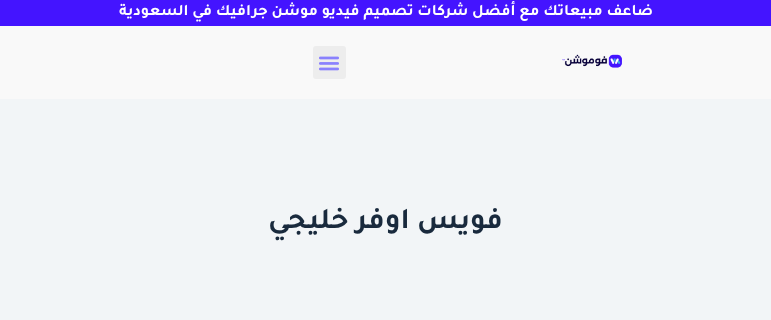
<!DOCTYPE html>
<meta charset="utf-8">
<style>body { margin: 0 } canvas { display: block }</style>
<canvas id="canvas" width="771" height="320"></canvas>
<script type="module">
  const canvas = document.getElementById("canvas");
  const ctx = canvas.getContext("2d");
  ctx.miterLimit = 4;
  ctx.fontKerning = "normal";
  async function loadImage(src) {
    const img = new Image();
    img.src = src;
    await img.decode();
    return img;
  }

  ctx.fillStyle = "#f9f9f9";
  ctx.fillRect(0, 0, 771, 320);
  ctx.fillStyle = "#4414ff";
  ctx.fillRect(0, 0, 771, 26);
  ctx.direction = "rtl";
  ctx.font = "bold 16px Tajawal";
  ctx.fillStyle = "#ffffff";
  ctx.fillText("ضاعف مبيعاتك مع أفضل شركات تصميم فيديو موشن جرافيك في السعودية", 653, 15);
  ctx.drawImage(await loadImage("img1.png"), 562, 54, 60, 14);
  ctx.fillStyle = "#ededed";
  ctx.beginPath();
  ctx.roundRect(313, 46, 33, 33, 3);
  ctx.fill();
  ctx.drawImage(await loadImage("img2.png"), 319, 56, 20, 15);
  ctx.fillStyle = "#f2f5f7";
  ctx.fillRect(0, 99, 771, 221);
  ctx.font = "bold 30px Tajawal";
  ctx.fillStyle = "#192a3d";
  ctx.fillText("فويس اوفر خليجي", 503, 228);
</script>
